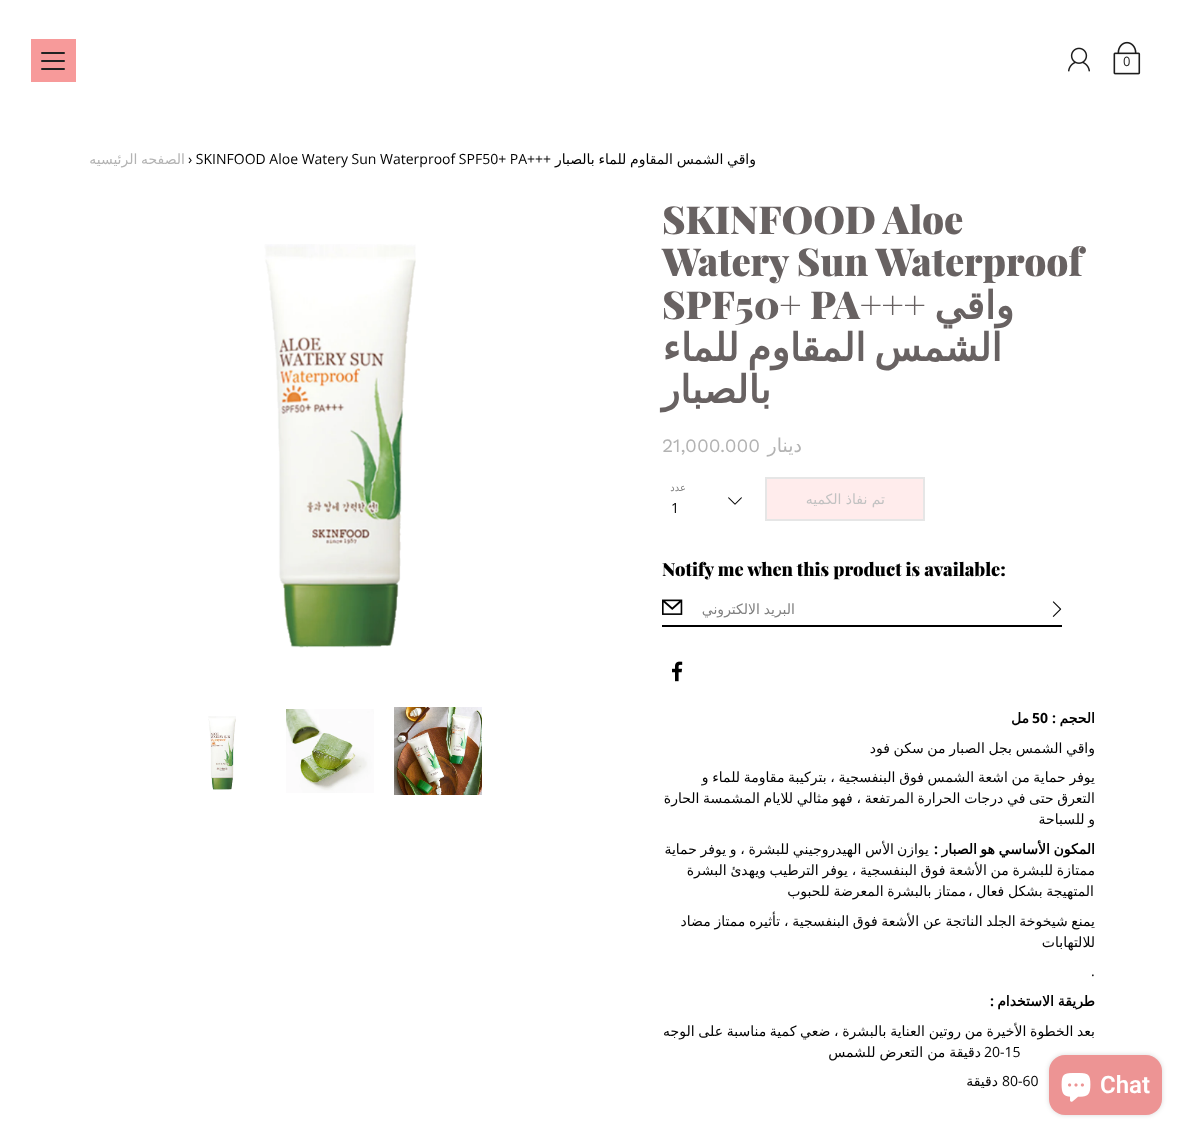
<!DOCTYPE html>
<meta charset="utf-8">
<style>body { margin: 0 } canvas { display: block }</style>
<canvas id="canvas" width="1184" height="1136"></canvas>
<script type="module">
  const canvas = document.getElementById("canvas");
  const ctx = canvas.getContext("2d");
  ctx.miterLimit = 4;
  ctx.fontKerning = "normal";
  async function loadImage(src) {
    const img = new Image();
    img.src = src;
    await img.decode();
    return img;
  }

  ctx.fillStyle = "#ffffff";
  ctx.fillRect(0, 0, 1184, 1136);
  ctx.drawImage(await loadImage("img1.png"), 1113, 41, 28, 34);
  ctx.font = "13px Open Sans";
  ctx.fillStyle = "#1d1d1d";
  ctx.fillText("0", 1123, 66);
  ctx.drawImage(await loadImage("img2.png"), 1068, 47, 22, 25);
  ctx.fillStyle = "#f79a9a";
  ctx.fillRect(31, 39, 45, 43);
  ctx.fillStyle = "#222222";
  ctx.beginPath();
  ctx.roundRect(41, 60, 24, 2, 1);
  ctx.fill();
  ctx.beginPath();
  ctx.roundRect(41, 52, 24, 2, 1);
  ctx.fill();
  ctx.beginPath();
  ctx.roundRect(41, 68, 24, 2, 1);
  ctx.fill();
  ctx.wordSpacing = "-0.75px";
  ctx.direction = "rtl";
  ctx.font = "14px DejaVu Sans";
  ctx.fillStyle = "#000000";
  ctx.fillText("واقي الشمس المقاوم للماء بالصبار", 756, 164);
  ctx.wordSpacing = "0px";
  ctx.direction = "ltr";
  ctx.font = "14px Open Sans";
  ctx.fillText("› SKINFOOD Aloe Watery Sun Waterproof SPF50+ PA+++", 188, 164);
  ctx.wordSpacing = "-0.75px";
  ctx.direction = "rtl";
  ctx.font = "14px DejaVu Sans";
  ctx.fillStyle = "#b3b3b3";
  ctx.fillText("الصفحه الرئيسيه", 185, 164);
  ctx.wordSpacing = "0px";
  ctx.direction = "ltr";
  ctx.font = "900 38.5px Playfair Display";
  ctx.fillStyle = "#686262";
  ctx.fillText("SKINFOOD Aloe", 662, 234);
  ctx.fillText("Watery Sun Waterproof", 662, 276);
  ctx.direction = "rtl";
  ctx.font = "bold 38.5px DejaVu Sans";
  ctx.fillText("واقي", 1014, 319);
  ctx.direction = "ltr";
  ctx.font = "900 38.5px Playfair Display";
  ctx.fillText("SPF50+ PA+++", 662, 319);
  ctx.wordSpacing = "-4px";
  ctx.direction = "rtl";
  ctx.font = "bold 38.5px DejaVu Sans";
  ctx.fillText("الشمس المقاوم للماء", 1002, 361);
  ctx.wordSpacing = "0px";
  ctx.fillText("بالصبار", 771, 403);
  ctx.font = "19px DejaVu Sans";
  ctx.fillStyle = "#b3b3b3";
  ctx.fillText("دينار", 802, 452);
  ctx.direction = "ltr";
  ctx.font = "19px Work Sans";
  ctx.fillText("21,000.000", 662, 452);
  ctx.fillStyle = "#ffecec";
  ctx.beginPath();
  ctx.rect(766, 478, 158, 42);
  ctx.fill();
  ctx.strokeStyle = "#e6e6e6";
  ctx.lineWidth = 2;
  ctx.stroke();
  ctx.direction = "rtl";
  ctx.font = "14px DejaVu Sans";
  ctx.fillStyle = "#c2c2c2";
  ctx.fillText("تم نفاذ الكميه", 885, 504);
  ctx.font = "10px DejaVu Sans";
  ctx.fillStyle = "#808080";
  ctx.fillText("عدد", 686, 491);
  ctx.drawImage(await loadImage("img3.png"), 728, 497, 14, 8);
  ctx.direction = "ltr";
  ctx.font = "14px Open Sans";
  ctx.fillStyle = "#000000";
  ctx.fillText("1", 671, 513);
  ctx.font = "900 18.25px Playfair Display";
  ctx.fillText("Notify me when this product is available:", 662, 576);
  ctx.fillRect(662, 625, 400, 2);
  ctx.drawImage(await loadImage("img4.png"), 1052, 601, 10, 16);
  ctx.wordSpacing = "-0.75px";
  ctx.direction = "rtl";
  ctx.font = "14px DejaVu Sans";
  ctx.fillStyle = "#808080";
  ctx.fillText("البريد الالكتروني", 795, 614);
  ctx.drawImage(await loadImage("img5.png"), 662, 599, 21, 16);
  ctx.drawImage(await loadImage("img6.png"), 672, 661, 11, 21);
  ctx.wordSpacing = "0px";
  ctx.font = "bold 14px DejaVu Sans";
  ctx.fillStyle = "#000000";
  ctx.fillText("الحجم", 1095, 723);
  ctx.font = "bold 14px Open Sans";
  ctx.fillText(":", 1056, 723);
  ctx.direction = "ltr";
  ctx.fillText("50", 1032, 723);
  ctx.direction = "rtl";
  ctx.font = "bold 14px DejaVu Sans";
  ctx.fillText("مل", 1029, 723);
  ctx.wordSpacing = "-0.75px";
  ctx.font = "14px DejaVu Sans";
  ctx.fillText("واقي الشمس بجل الصبار من سكن فود", 1095, 753);
  ctx.fillText("يوفر حماية من اشعة الشمس فوق البنفسجية ، بتركيبة مقاومة للماء و", 1095, 782);
  ctx.fillText("التعرق حتى في درجات الحرارة المرتفعة ، فهو مثالي للايام المشمسة الحارة", 1095, 803);
  ctx.fillText("و للسباحة", 1095, 824);
  ctx.font = "bold 14px DejaVu Sans";
  ctx.fillText("المكون الأساسي هو", 1095, 854);
  ctx.wordSpacing = "0px";
  ctx.fillText("الصبار", 977, 854);
  ctx.font = "bold 14px Open Sans";
  ctx.fillText(":", 938, 854);
  ctx.font = "14px DejaVu Sans";
  ctx.fillText("يوازن", 929, 854);
  ctx.wordSpacing = "-0.75px";
  ctx.fillText("الأس الهيدروجيني للبشرة ، و يوفر حماية", 894, 854);
  ctx.fillText("ممتازة للبشرة من الأشعة فوق البنفسجية ، يوفر الترطيب ويهدئ البشرة", 1095, 875);
  ctx.fillText("المتهيجة بشكل فعال ،", 1094, 896);
  ctx.fillText("ممتاز بالبشرة المعرضة للحبوب", 966, 896);
  ctx.fillText("يمنع شيخوخة الجلد الناتجة عن الأشعة فوق البنفسجية ، تأثيره ممتاز مضاد", 1095, 926);
  ctx.wordSpacing = "0px";
  ctx.fillText("للالتهابات", 1095, 947);
  ctx.direction = "ltr";
  ctx.font = "14px Open Sans";
  ctx.fillText(".", 1091, 976);
  ctx.wordSpacing = "-0.75px";
  ctx.direction = "rtl";
  ctx.font = "bold 14px DejaVu Sans";
  ctx.fillText("طريقة الاستخدام", 1095, 1006);
  ctx.wordSpacing = "0px";
  ctx.direction = "ltr";
  ctx.font = "bold 14px Open Sans";
  ctx.fillText(":", 990, 1006);
  ctx.wordSpacing = "-0.75px";
  ctx.direction = "rtl";
  ctx.font = "14px DejaVu Sans";
  ctx.fillText("بعد الخطوة الأخيرة من روتين العناية بالبشرة ، ضعي كمية مناسبة على الوجه", 1095, 1036);
  ctx.wordSpacing = "0px";
  ctx.direction = "ltr";
  ctx.font = "14px Open Sans";
  ctx.fillText("20-15", 984, 1057);
  ctx.wordSpacing = "-0.5px";
  ctx.direction = "rtl";
  ctx.font = "14px DejaVu Sans";
  ctx.fillText("دقيقة من التعرض للشمس", 981, 1057);
  ctx.wordSpacing = "0px";
  ctx.direction = "ltr";
  ctx.font = "14px Open Sans";
  ctx.fillText("80-60", 1002, 1086);
  ctx.direction = "rtl";
  ctx.font = "14px DejaVu Sans";
  ctx.fillText("دقيقة", 998, 1086);
  ctx.drawImage(await loadImage("img7.png"), 264, 244, 152, 404);
  ctx.drawImage(await loadImage("img8.png"), 394, 707, 88, 88);
  ctx.drawImage(await loadImage("img9.png"), 286, 709, 88, 84);
  ctx.drawImage(await loadImage("img10.png"), 208, 716, 28, 74);
  ctx.fillStyle = "rgba(0, 0, 0, 0.15)";
  ctx.filter = "blur(2.5px)";
  ctx.beginPath();
  ctx.roundRect(1049, 1055, 113, 60, 16);
  ctx.fill();
  ctx.filter = "none";
  ctx.fillStyle = "#ed9494";
  ctx.beginPath();
  ctx.roundRect(1049, 1055, 113, 60, 16);
  ctx.fill();
  ctx.direction = "ltr";
  ctx.font = "600 24px Roboto";
  ctx.fillStyle = "#ffffff";
  ctx.fillText("Chat", 1100, 1093);
  ctx.drawImage(await loadImage("img11.png"), 1061, 1073, 30, 29);
</script>
